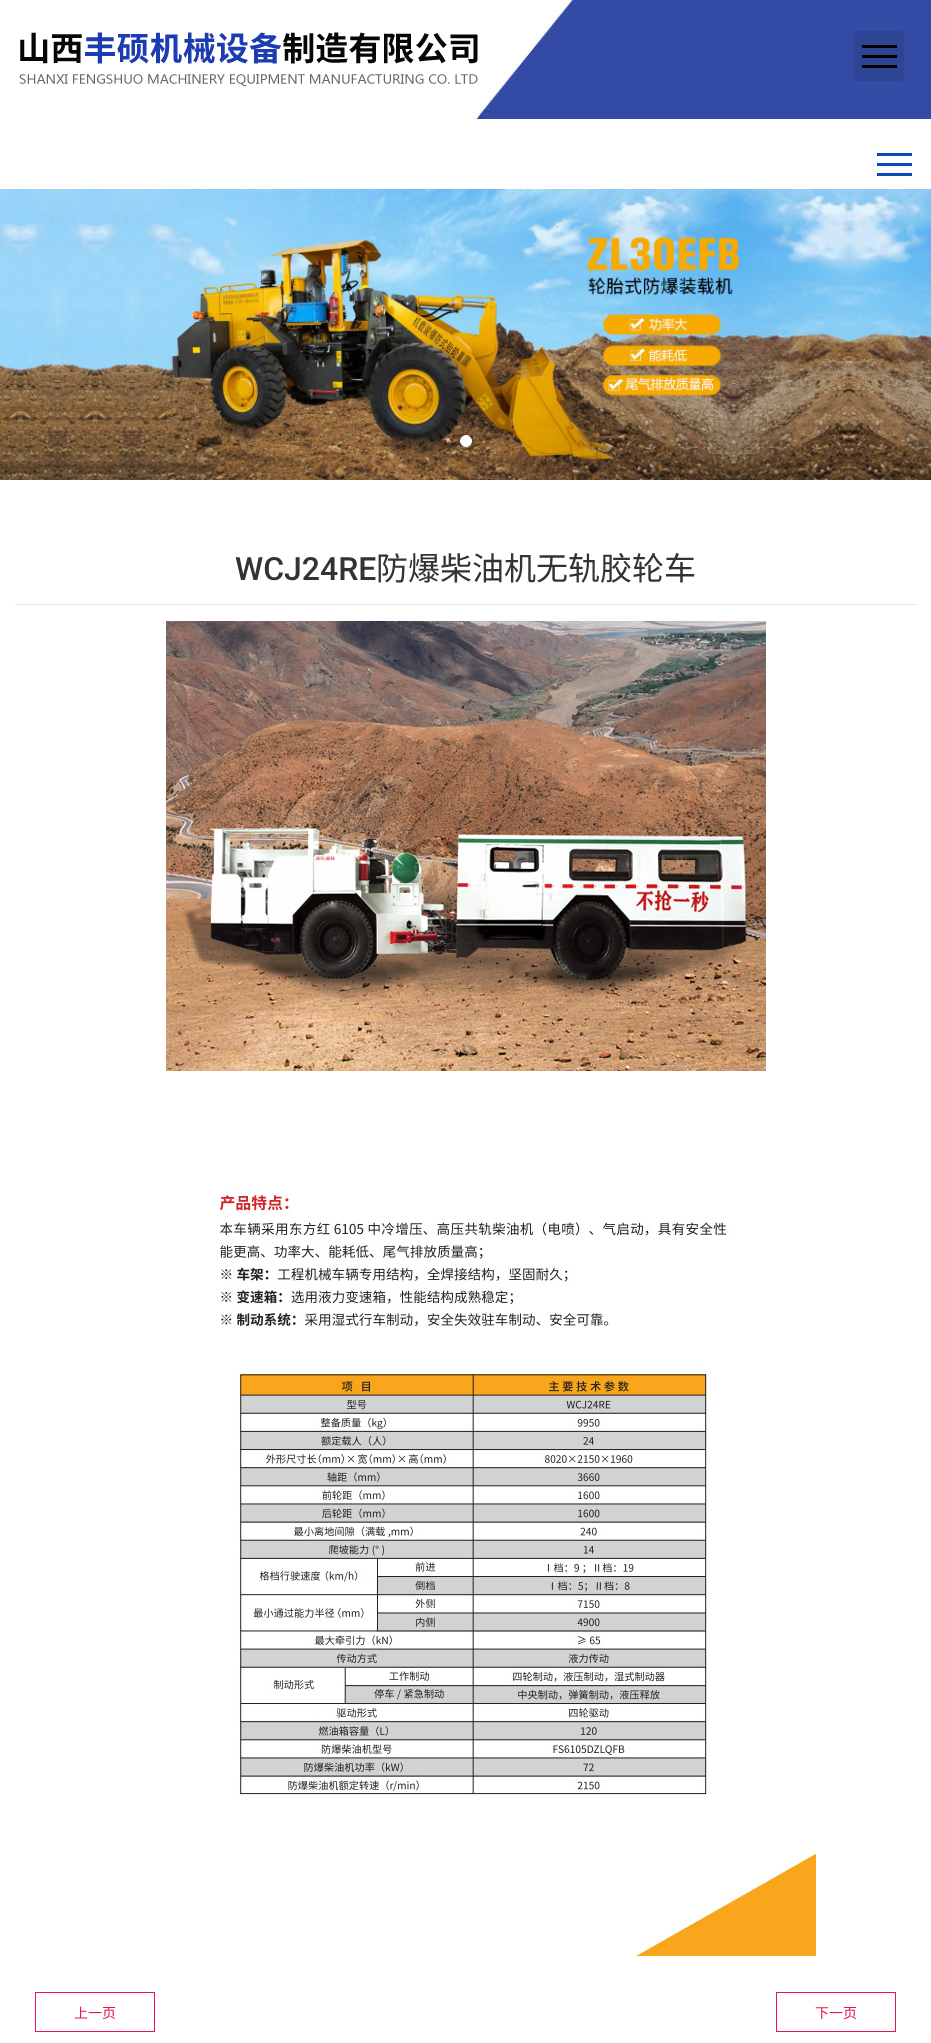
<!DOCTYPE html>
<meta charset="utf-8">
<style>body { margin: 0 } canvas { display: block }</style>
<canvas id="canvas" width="931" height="2043"></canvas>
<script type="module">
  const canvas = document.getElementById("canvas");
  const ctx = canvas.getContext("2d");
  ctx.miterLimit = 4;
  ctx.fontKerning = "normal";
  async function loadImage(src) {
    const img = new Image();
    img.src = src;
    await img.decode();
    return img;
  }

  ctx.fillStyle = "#ffffff";
  ctx.fillRect(0, 0, 931, 2043);
  ctx.drawImage(await loadImage("img1.png"), 19, 0, 912, 119);
  ctx.fillStyle = "#2e4495";
  ctx.beginPath();
  ctx.roundRect(854, 31, 50, 50, 3);
  ctx.fill();
  ctx.fillStyle = "#000000";
  ctx.fillRect(862, 45, 35, 3);
  ctx.fillRect(862, 55, 35, 3);
  ctx.fillRect(862, 65, 35, 3);
  ctx.fillStyle = "#084db5";
  ctx.fillRect(877, 153, 35, 3);
  ctx.fillRect(877, 163, 35, 3);
  ctx.fillRect(877, 173, 35, 3);
  ctx.drawImage(await loadImage("img2.png"), 0, 189, 931, 291);
  ctx.fillStyle = "#ffffff";
  ctx.beginPath();
  ctx.arc(466, 441, 5.5, 0, Math.PI * 2);
  ctx.fill();
  ctx.strokeStyle = "#ffffff";
  ctx.stroke();
  ctx.font = "500 32px Roboto";
  ctx.fillStyle = "#333333";
  ctx.fillText("WCJ24RE", 235, 580);
  ctx.font = "32px Noto Sans CJK SC";
  ctx.fillText("防爆柴油机无轨胶轮车", 376, 580);
  ctx.fillStyle = "#e6e6e6";
  ctx.fillRect(15, 604, 901, 1);
  ctx.drawImage(await loadImage("img3.png"), 166, 621, 600, 450);
  ctx.drawImage(await loadImage("img4.png"), 220, 1191, 596, 765);
  ctx.strokeStyle = "#e81748";
  ctx.strokeRect(35.5, 1992.5, 119, 39);
  ctx.font = "14px Noto Sans CJK SC";
  ctx.fillStyle = "#e81748";
  ctx.fillText("上一页", 74, 2018);
  ctx.strokeRect(776.5, 1992.5, 119, 39);
  ctx.fillText("下一页", 815, 2018);
</script>
